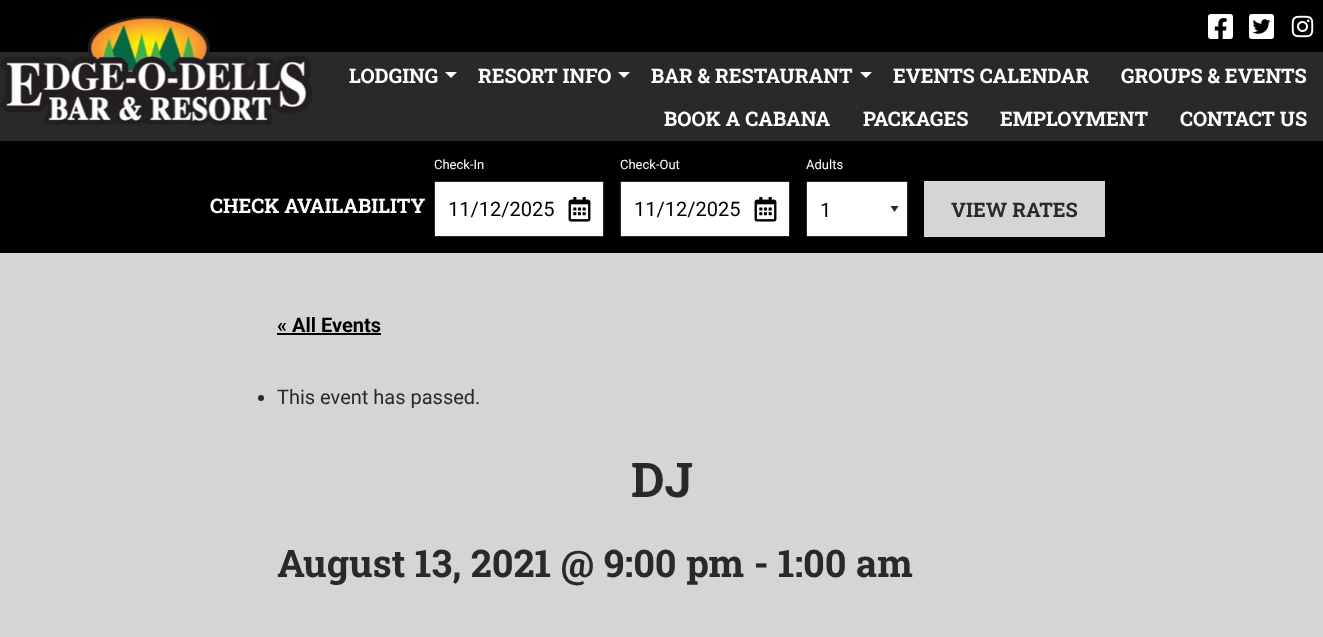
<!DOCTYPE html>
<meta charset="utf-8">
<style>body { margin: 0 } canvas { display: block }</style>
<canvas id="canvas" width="1323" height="637"></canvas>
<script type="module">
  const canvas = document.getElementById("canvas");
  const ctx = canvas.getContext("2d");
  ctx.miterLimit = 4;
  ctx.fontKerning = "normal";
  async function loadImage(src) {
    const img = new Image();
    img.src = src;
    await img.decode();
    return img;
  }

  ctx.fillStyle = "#d5d5d5";
  ctx.fillRect(0, 0, 1323, 637);
  ctx.fillStyle = "#292929";
  ctx.fillRect(0, 52, 1323, 89);
  ctx.fillStyle = "#000000";
  ctx.fillRect(0, 0, 1323, 52);
  ctx.drawImage(await loadImage("img1.png"), 0, 16, 312, 109);
  ctx.drawImage(await loadImage("img2.png"), 1208, 14, 25, 25);
  ctx.drawImage(await loadImage("img3.png"), 1249, 14, 25, 25);
  ctx.drawImage(await loadImage("img4.png"), 1291, 15, 23, 23);
  ctx.font = "bold 20px Roboto Slab";
  ctx.fillStyle = "#ffffff";
  ctx.fillText("LODGING", 349, 83);
  ctx.beginPath();
  ctx.moveTo(445, 72);
  ctx.lineTo(457, 72);
  ctx.lineTo(451, 78);
  ctx.closePath();
  ctx.fill();
  ctx.fillText("RESORT INFO", 478, 83);
  ctx.beginPath();
  ctx.moveTo(618, 72);
  ctx.lineTo(630, 72);
  ctx.lineTo(624, 78);
  ctx.closePath();
  ctx.fill();
  ctx.fillText("BAR & RESTAURANT", 651, 83);
  ctx.beginPath();
  ctx.moveTo(860, 72);
  ctx.lineTo(872, 72);
  ctx.lineTo(866, 78);
  ctx.closePath();
  ctx.fill();
  ctx.fillText("EVENTS CALENDAR", 893, 83);
  ctx.fillText("GROUPS & EVENTS", 1121, 83);
  ctx.fillText("BOOK A CABANA", 664, 126);
  ctx.fillText("PACKAGES", 863, 126);
  ctx.fillText("EMPLOYMENT", 1000, 126);
  ctx.fillText("CONTACT US", 1180, 126);
  ctx.fillStyle = "#000000";
  ctx.fillRect(0, 141, 1323, 112);
  ctx.fillStyle = "#ffffff";
  ctx.fillText("CHECK AVAILABILITY", 210, 213);
  ctx.font = "13px Roboto";
  ctx.fillText("Check-In", 434, 169);
  ctx.beginPath();
  ctx.rect(434.5, 181.5, 169, 55);
  ctx.fill();
  ctx.strokeStyle = "#292929";
  ctx.stroke();
  ctx.font = "20px Roboto";
  ctx.fillStyle = "#000000";
  ctx.fillText("11/12/2025", 448, 216);
  ctx.drawImage(await loadImage("img5.png"), 568, 197, 23, 25);
  ctx.font = "13px Roboto";
  ctx.fillStyle = "#ffffff";
  ctx.fillText("Check-Out", 620, 169);
  ctx.beginPath();
  ctx.rect(620.5, 181.5, 169, 55);
  ctx.fill();
  ctx.stroke();
  ctx.font = "20px Roboto";
  ctx.fillStyle = "#000000";
  ctx.fillText("11/12/2025", 634, 216);
  ctx.drawImage(await loadImage("img5.png"), 754, 197, 23, 25);
  ctx.font = "13px Roboto";
  ctx.fillStyle = "#ffffff";
  ctx.fillText("Adults", 806, 169);
  ctx.fillRect(807, 182, 100, 54);
  ctx.fillStyle = "#292929";
  ctx.beginPath();
  ctx.moveTo(890.5, 206);
  ctx.lineTo(898.5, 206);
  ctx.lineTo(894.5, 212);
  ctx.closePath();
  ctx.fill();
  ctx.strokeRect(806.5, 181.5, 101, 55);
  ctx.font = "20px Roboto";
  ctx.fillStyle = "#000000";
  ctx.fillText("1", 820, 217);
  ctx.fillStyle = "#d5d5d5";
  ctx.fillRect(924, 181, 181, 56);
  ctx.font = "bold 20px Roboto Slab";
  ctx.fillStyle = "#292929";
  ctx.fillText("VIEW RATES", 951, 217);
  ctx.font = "bold 20px Roboto";
  ctx.fillStyle = "#000000";
  ctx.fillText("« All Events", 277, 332);
  ctx.fillRect(277, 333, 104, 2);
  ctx.fillStyle = "#292929";
  ctx.beginPath();
  ctx.arc(261, 398, 3, 0, Math.PI * 2);
  ctx.fill();
  ctx.font = "20px Roboto";
  ctx.fillText("This event has passed.", 277, 404);
  ctx.font = "bold 48px Roboto Slab";
  ctx.fillText("DJ", 631, 497);
  ctx.font = "bold 38px Roboto Slab";
  ctx.fillText("August 13, 2021 @ 9:00 pm - 1:00 am", 277, 577);
</script>
